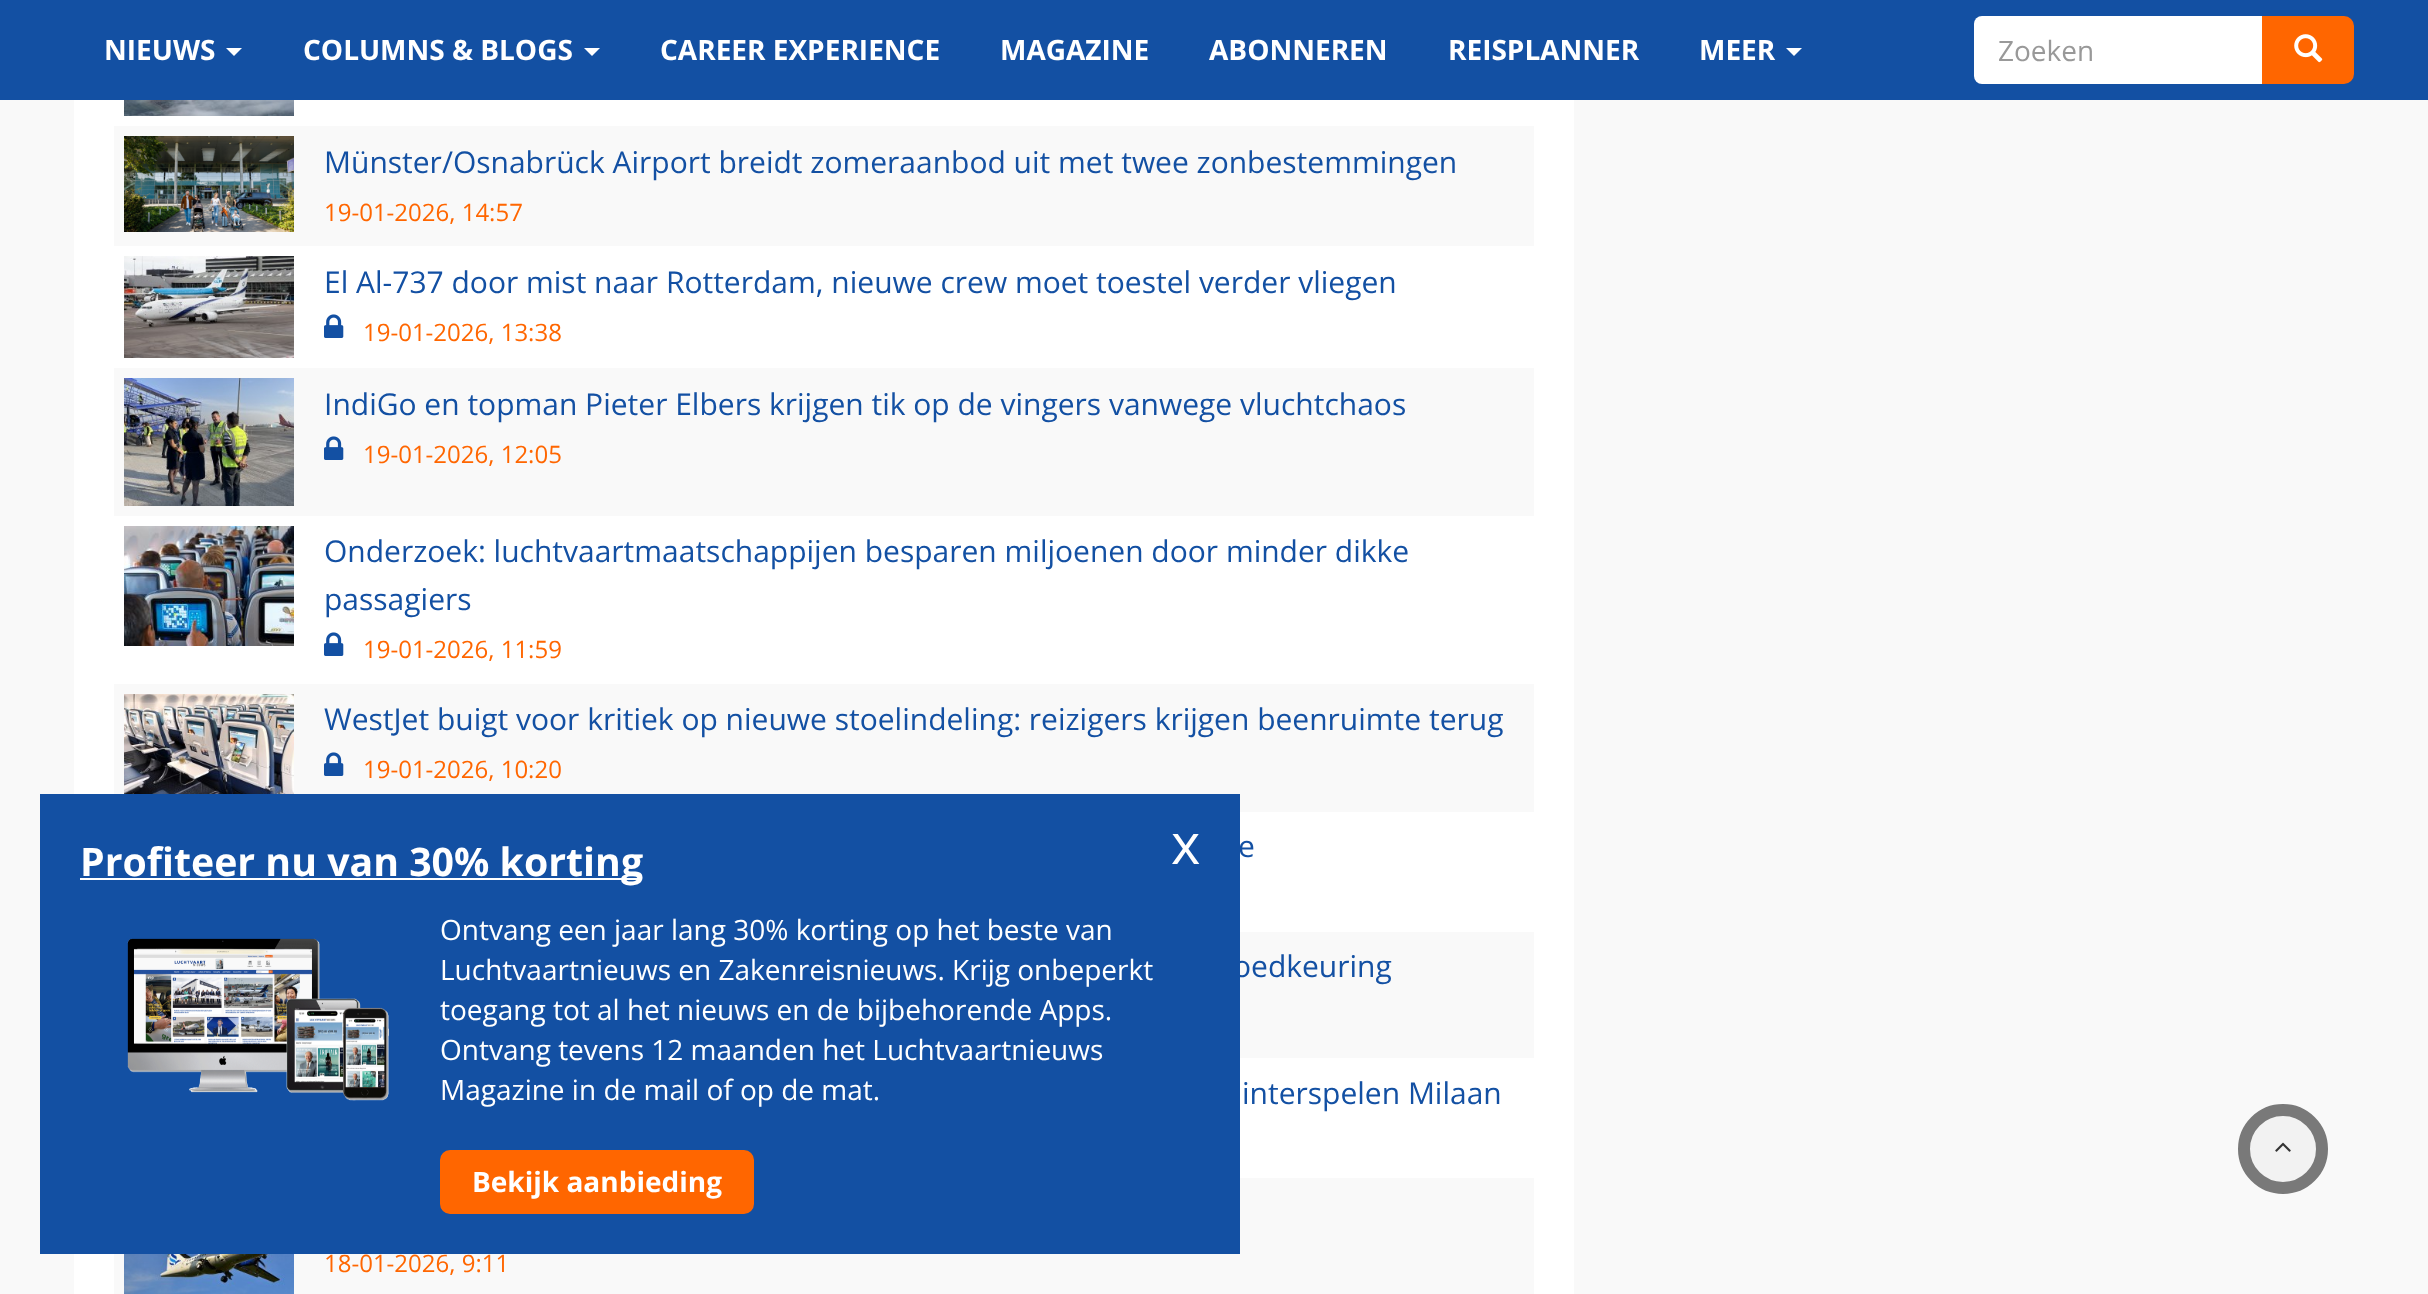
<!DOCTYPE html>
<meta charset="utf-8">
<style>body { margin: 0 } canvas { display: block }</style>
<canvas id="canvas" width="2428" height="1294"></canvas>
<script type="module">
  const canvas = document.getElementById("canvas");
  const ctx = canvas.getContext("2d");
  ctx.miterLimit = 4;
  ctx.fontKerning = "normal";
  async function loadImage(src) {
    const img = new Image();
    img.src = src;
    await img.decode();
    return img;
  }

  ctx.fillStyle = "#f9f9f9";
  ctx.fillRect(0, 0, 2428, 1294);
  ctx.fillStyle = "#1350a3";
  ctx.fillRect(0, 0, 2428, 100);
  ctx.font = "bold 28px Open Sans";
  ctx.fillStyle = "#ffffff";
  ctx.fillText("NIEUWS", 104, 60);
  ctx.beginPath();
  ctx.moveTo(226, 48);
  ctx.lineTo(242, 48);
  ctx.lineTo(234, 56);
  ctx.closePath();
  ctx.fill();
  ctx.fillText("COLUMNS & BLOGS", 303, 60);
  ctx.beginPath();
  ctx.moveTo(584, 48);
  ctx.lineTo(600, 48);
  ctx.lineTo(592, 56);
  ctx.closePath();
  ctx.fill();
  ctx.fillText("CAREER EXPERIENCE", 660, 60);
  ctx.fillText("MAGAZINE", 1000, 60);
  ctx.fillText("ABONNEREN", 1209, 60);
  ctx.fillText("REISPLANNER", 1448, 60);
  ctx.fillText("MEER", 1699, 60);
  ctx.beginPath();
  ctx.moveTo(1786, 48);
  ctx.lineTo(1802, 48);
  ctx.lineTo(1794, 56);
  ctx.closePath();
  ctx.fill();
  ctx.beginPath();
  ctx.roundRect(1974, 16, 290, 68, [8, 0, 0, 8]);
  ctx.fill();
  ctx.font = "28px Open Sans";
  ctx.fillStyle = "#999999";
  ctx.fillText("Zoeken", 1998, 61);
  ctx.fillStyle = "#ff6600";
  ctx.beginPath();
  ctx.roundRect(2263, 17, 90, 66, [0, 9, 9, 0]);
  ctx.fill();
  ctx.strokeStyle = "#ff6600";
  ctx.lineWidth = 2;
  ctx.stroke();
  ctx.drawImage(await loadImage("img1.png"), 2294, 34, 29, 29);
  ctx.fillStyle = "#ffffff";
  ctx.fillRect(74, 100, 1500, 1194);
  ctx.drawImage(await loadImage("img2.png"), 124, 100, 170, 16);
  ctx.fillStyle = "#f9f9f9";
  ctx.fillRect(114, 126, 1420, 120);
  ctx.drawImage(await loadImage("img3.png"), 124, 136, 170, 96);
  ctx.font = "30px Open Sans";
  ctx.fillStyle = "#1350a3";
  ctx.fillText("Münster/Osnabrück Airport breidt zomeraanbod uit met twee zonbestemmingen", 324, 173);
  ctx.font = "24px Open Sans";
  ctx.fillStyle = "#ff6600";
  ctx.fillText("19-01-2026, 14:57", 324, 221);
  ctx.drawImage(await loadImage("img4.png"), 124, 256, 170, 102);
  ctx.font = "30px Open Sans";
  ctx.fillStyle = "#1350a3";
  ctx.fillText("El Al-737 door mist naar Rotterdam, nieuwe crew moet toestel verder vliegen", 324, 293);
  ctx.drawImage(await loadImage("img5.png"), 324, 314, 20, 24);
  ctx.font = "24px Open Sans";
  ctx.fillStyle = "#ff6600";
  ctx.fillText("19-01-2026, 13:38", 363, 341);
  ctx.fillStyle = "#f9f9f9";
  ctx.fillRect(114, 368, 1420, 148);
  ctx.drawImage(await loadImage("img6.png"), 124, 378, 170, 128);
  ctx.font = "30px Open Sans";
  ctx.fillStyle = "#1350a3";
  ctx.fillText("IndiGo en topman Pieter Elbers krijgen tik op de vingers vanwege vluchtchaos", 324, 415);
  ctx.drawImage(await loadImage("img7.png"), 324, 436, 20, 24);
  ctx.font = "24px Open Sans";
  ctx.fillStyle = "#ff6600";
  ctx.fillText("19-01-2026, 12:05", 363, 463);
  ctx.drawImage(await loadImage("img8.png"), 124, 526, 170, 120);
  ctx.font = "30px Open Sans";
  ctx.fillStyle = "#1350a3";
  ctx.fillText("Onderzoek: luchtvaartmaatschappijen besparen miljoenen door minder dikke", 324, 562);
  ctx.fillText("passagiers", 324, 610);
  ctx.drawImage(await loadImage("img5.png"), 324, 632, 20, 24);
  ctx.font = "24px Open Sans";
  ctx.fillStyle = "#ff6600";
  ctx.fillText("19-01-2026, 11:59", 363, 658);
  ctx.fillStyle = "#f9f9f9";
  ctx.fillRect(114, 684, 1420, 128);
  ctx.drawImage(await loadImage("img9.png"), 124, 694, 170, 100);
  ctx.font = "30px Open Sans";
  ctx.fillStyle = "#1350a3";
  ctx.fillText("WestJet buigt voor kritiek op nieuwe stoelindeling: reizigers krijgen beenruimte terug", 324, 730);
  ctx.drawImage(await loadImage("img7.png"), 324, 752, 20, 24);
  ctx.font = "24px Open Sans";
  ctx.fillStyle = "#ff6600";
  ctx.fillText("19-01-2026, 10:20", 363, 778);
  ctx.font = "30px Open Sans";
  ctx.fillStyle = "#1350a3";
  ctx.fillText("e", 1238, 857);
  ctx.fillStyle = "#f9f9f9";
  ctx.fillRect(1240, 932, 294, 126);
  ctx.fillStyle = "#1350a3";
  ctx.fillText("oedkeuring", 1233, 977);
  ctx.fillText("interspelen Milaan", 1242, 1104);
  ctx.fillStyle = "#f9f9f9";
  ctx.fillRect(114, 1178, 1420, 116);
  ctx.drawImage(await loadImage("img10.png"), 124, 1254, 170, 40);
  ctx.font = "24px Open Sans";
  ctx.fillStyle = "#ff6600";
  ctx.fillText("18-01-2026, 9:11", 324, 1272);
  ctx.fillStyle = "#1350a3";
  ctx.fillRect(40, 794, 1200, 460);
  ctx.fillStyle = "#ffffff";
  ctx.fillRect(80, 878, 562, 2);
  ctx.font = "bold 39.25px Open Sans";
  ctx.fillText("Profiteer nu van 30% korting", 80, 876);
  ctx.font = "56px Open Sans";
  ctx.fillText("x", 1171, 864);
  ctx.font = "28px Open Sans";
  ctx.fillText("Ontvang een jaar lang 30% korting op het beste van", 440, 940);
  ctx.drawImage(await loadImage("img11.png"), 127, 938, 262, 163);
  ctx.fillText("Luchtvaartnieuws en Zakenreisnieuws. Krijg onbeperkt", 440, 980);
  ctx.fillText("toegang tot al het nieuws en de bijbehorende Apps.", 440, 1020);
  ctx.fillText("Ontvang tevens 12 maanden het Luchtvaartnieuws", 440, 1060);
  ctx.fillText("Magazine in de mail of op de mat.", 440, 1100);
  ctx.fillStyle = "#ff6600";
  ctx.beginPath();
  ctx.roundRect(441, 1151, 312, 62, 9);
  ctx.fill();
  ctx.stroke();
  ctx.font = "bold 28px Open Sans";
  ctx.fillStyle = "#ffffff";
  ctx.fillText("Bekijk aanbieding", 472, 1192);
  ctx.fillStyle = "#f2f2f2";
  ctx.beginPath();
  ctx.arc(2283, 1149, 45, 0, Math.PI * 2);
  ctx.fill();
  ctx.beginPath();
  ctx.arc(2283, 1149, 39, 0, Math.PI * 2);
  ctx.strokeStyle = "rgba(0, 0, 0, 0.5)";
  ctx.lineWidth = 12;
  ctx.stroke();
  ctx.drawImage(await loadImage("img12.png"), 2275, 1142, 16, 10);
</script>
